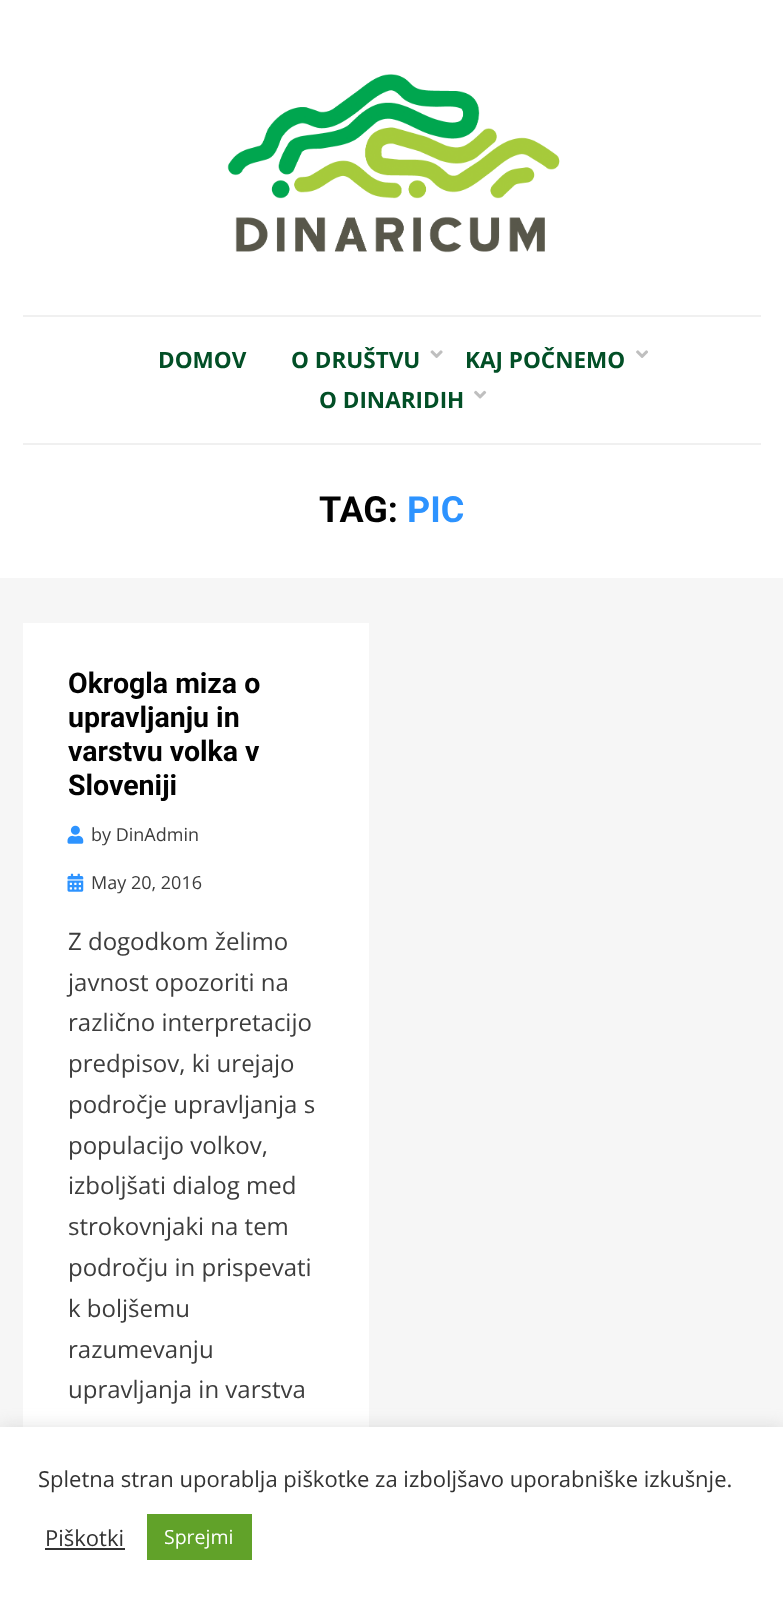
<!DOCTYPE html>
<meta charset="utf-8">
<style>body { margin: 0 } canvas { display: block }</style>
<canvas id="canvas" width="783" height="1605"></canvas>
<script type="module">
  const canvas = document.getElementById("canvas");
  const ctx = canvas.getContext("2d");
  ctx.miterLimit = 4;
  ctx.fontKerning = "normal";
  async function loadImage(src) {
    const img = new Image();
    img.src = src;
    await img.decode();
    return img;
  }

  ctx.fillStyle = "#f6f6f6";
  ctx.fillRect(0, 0, 783, 1605);
  ctx.fillStyle = "#ffffff";
  ctx.fillRect(0, 0, 783, 578);
  ctx.drawImage(await loadImage("img1.png"), 227, 74, 333, 179);
  ctx.fillStyle = "#f0f0f0";
  ctx.fillRect(23, 315, 738, 2);
  ctx.fillRect(23, 443, 738, 2);
  ctx.font = "bold 22.5px Open Sans";
  ctx.fillStyle = "#024f26";
  ctx.fillText("DOMOV", 158, 368);
  ctx.fillText("O DRUŠTVU", 291, 368);
  ctx.drawImage(await loadImage("img2.png"), 430, 350, 13, 8);
  ctx.fillText("KAJ POČNEMO", 465, 368);
  ctx.drawImage(await loadImage("img3.png"), 636, 350, 12, 8);
  ctx.fillText("O DINARIDIH", 319, 408);
  ctx.drawImage(await loadImage("img4.png"), 474, 390, 13, 9);
  ctx.font = "bold 36px Roboto";
  ctx.fillStyle = "#020202";
  ctx.fillText("TAG:", 319, 522);
  ctx.fillStyle = "#2d93ff";
  ctx.fillText("PIC", 407, 522);
  ctx.fillStyle = "#ffffff";
  ctx.fillRect(23, 623, 346, 804);
  ctx.font = "bold 28.5px Roboto";
  ctx.fillStyle = "#020202";
  ctx.fillText("Okrogla miza o", 68, 693);
  ctx.fillText("upravljanju in", 68, 727);
  ctx.fillText("varstvu volka v", 68, 761);
  ctx.fillText("Sloveniji", 68, 795);
  ctx.drawImage(await loadImage("img5.png"), 67, 825, 17, 19);
  ctx.font = "18px Open Sans";
  ctx.fillStyle = "#3d3d3d";
  ctx.fillText("by DinAdmin", 91, 841);
  ctx.drawImage(await loadImage("img6.png"), 67, 873, 17, 19);
  ctx.fillText("May 20, 2016", 91, 889);
  ctx.font = "24px Open Sans";
  ctx.fillText("Z dogodkom želimo", 68, 950);
  ctx.fillText("javnost opozoriti na", 68, 991);
  ctx.fillText("različno interpretacijo", 68, 1031);
  ctx.fillText("predpisov, ki urejajo", 68, 1072);
  ctx.fillText("področje upravljanja s", 68, 1113);
  ctx.fillText("populacijo volkov,", 68, 1154);
  ctx.fillText("izboljšati dialog med", 68, 1194);
  ctx.fillText("strokovnjaki na tem", 68, 1235);
  ctx.fillText("področju in prispevati", 68, 1276);
  ctx.fillText("k boljšemu", 68, 1317);
  ctx.fillText("razumevanju", 68, 1358);
  ctx.fillText("upravljanja in varstva", 68, 1398);
  ctx.fillStyle = "rgba(172, 171, 171, 0.3)";
  ctx.filter = "blur(7.5px)";
  ctx.beginPath();
  ctx.rect(0, 1425, 783, 179);
  ctx.fill();
  ctx.filter = "none";
  ctx.fillStyle = "#ffffff";
  ctx.fillRect(0, 1427, 783, 178);
  ctx.font = "22px Open Sans";
  ctx.fillStyle = "#333333";
  ctx.fillText("Spletna stran uporablja piškotke za izboljšavo uporabniške izkušnje.", 38, 1487);
  ctx.fillText("Piškotki", 45, 1546);
  ctx.fillRect(45, 1548, 80, 2);
  ctx.fillStyle = "#61a229";
  ctx.fillRect(147, 1514, 105, 46);
  ctx.font = "19.5px Open Sans";
  ctx.fillStyle = "#ffffff";
  ctx.fillText("Sprejmi", 164, 1544);
</script>
